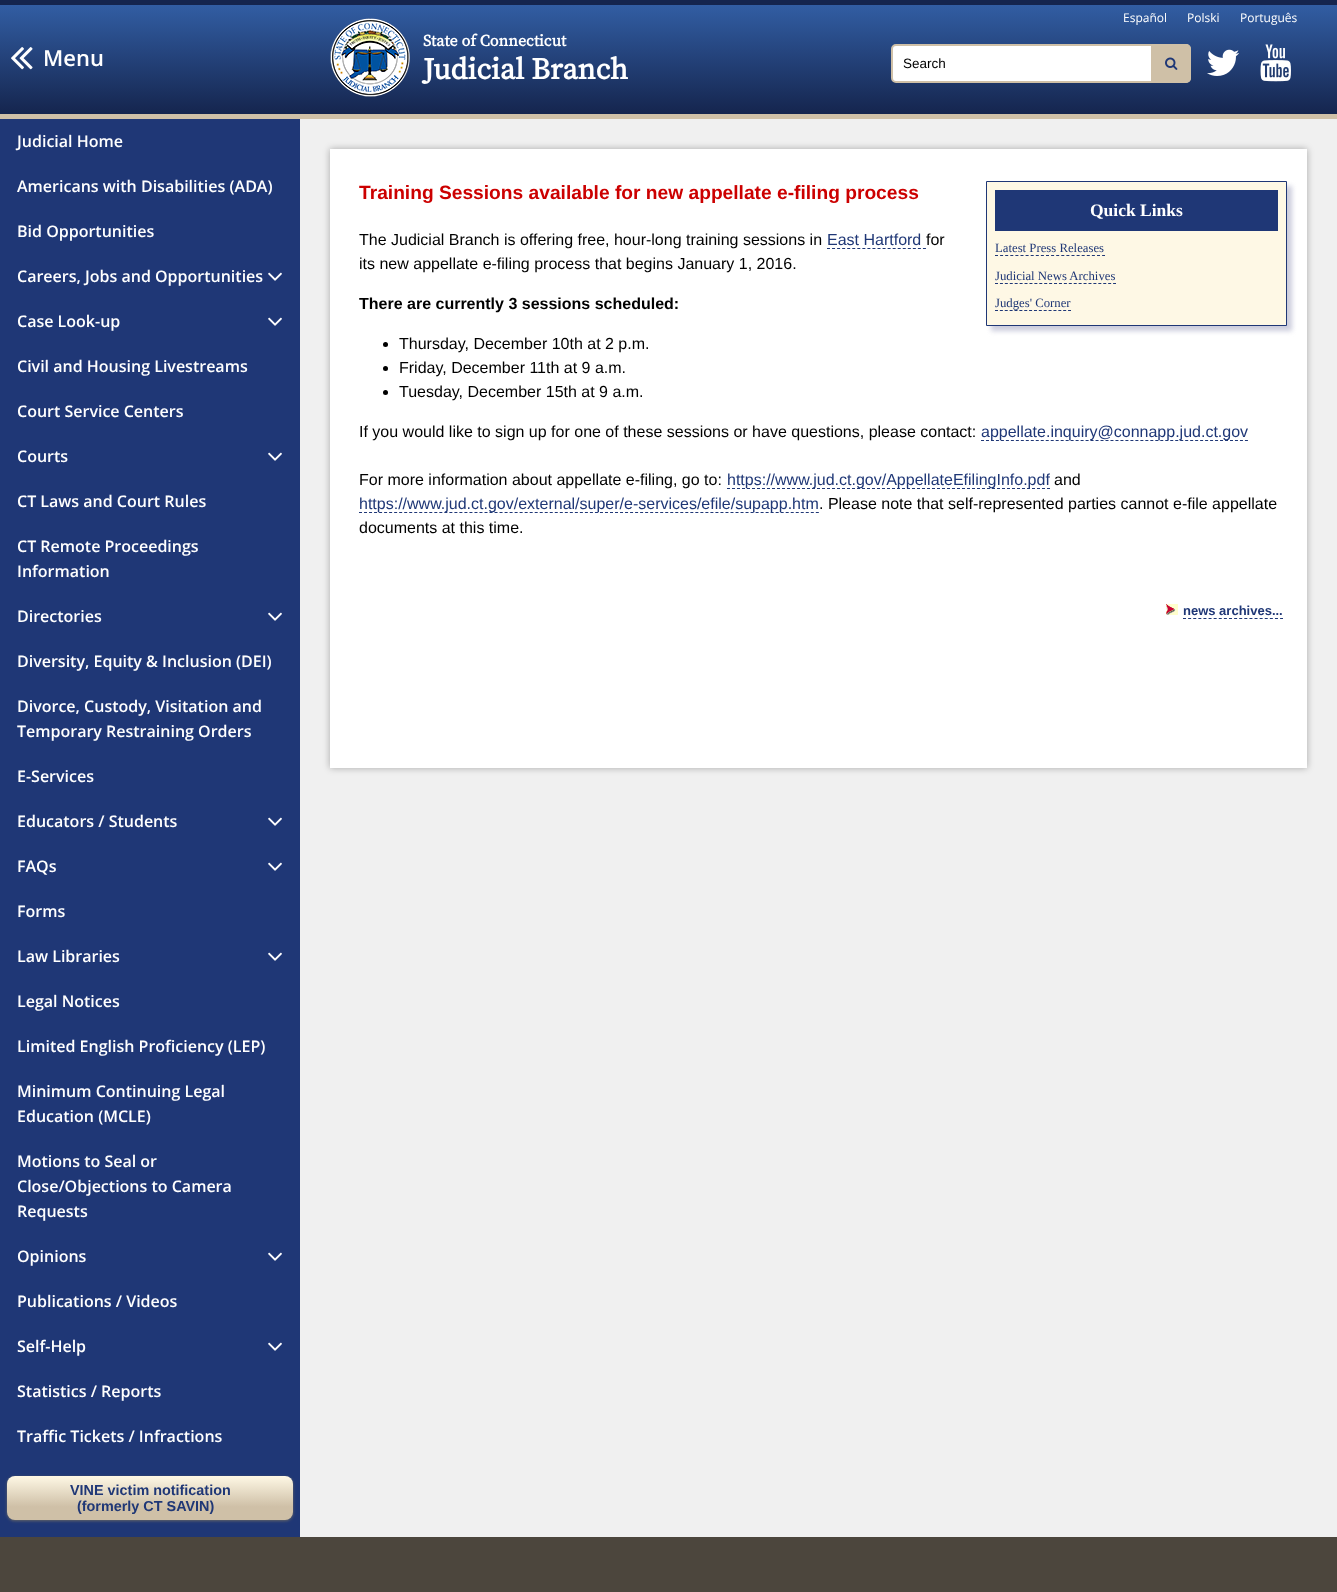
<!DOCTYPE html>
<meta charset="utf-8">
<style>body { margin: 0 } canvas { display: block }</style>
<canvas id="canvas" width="1337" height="1592"></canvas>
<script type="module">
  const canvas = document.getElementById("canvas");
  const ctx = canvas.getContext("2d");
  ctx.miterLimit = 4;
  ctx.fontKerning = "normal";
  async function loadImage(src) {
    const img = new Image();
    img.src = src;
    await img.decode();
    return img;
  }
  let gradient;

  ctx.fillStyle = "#4c463d";
  ctx.fillRect(0, 0, 1337, 1592);
  gradient = ctx.createLinearGradient(669, 0, 669, 114);
  gradient.addColorStop(0, "#3360a7");
  gradient.addColorStop(1, "#15254e");
  ctx.fillStyle = gradient;
  ctx.fillRect(0, 5, 1337, 109);
  ctx.fillStyle = "#15254e";
  ctx.fillRect(0, 0, 1337, 5);
  ctx.drawImage(await loadImage("img1.png"), 11, 47, 22, 23);
  ctx.font = "600 22px Open Sans";
  ctx.fillStyle = "#ffffff";
  ctx.fillText("Menu", 43, 66);
  ctx.drawImage(await loadImage("img2.png"), 330, 18, 80, 79);
  ctx.font = "bold 16px Source Serif Pro";
  ctx.fillText("State of Connecticut", 423, 46);
  ctx.font = "bold 30px Source Serif Pro";
  ctx.fillText("Judicial Branch", 423, 79);
  ctx.font = "12px Open Sans";
  ctx.fillText("Español", 1123, 22);
  ctx.fillText("Polski", 1187, 22);
  ctx.fillText("Português", 1240, 22);
  ctx.beginPath();
  ctx.roundRect(892, 45, 298, 37, 4);
  ctx.fill();
  ctx.strokeStyle = "#cfc0a7";
  ctx.lineWidth = 2;
  ctx.stroke();
  ctx.font = "13.5px Liberation Sans";
  ctx.fillStyle = "#000000";
  ctx.fillText("Search", 903, 68);
  ctx.fillStyle = "#cfc0a7";
  ctx.beginPath();
  ctx.roundRect(1151, 44, 40, 39, [0, 5, 5, 0]);
  ctx.fill();
  ctx.drawImage(await loadImage("img3.png"), 1165, 57, 13, 13);
  ctx.drawImage(await loadImage("img4.png"), 1207, 49, 32, 27);
  ctx.drawImage(await loadImage("img5.png"), 1260, 44, 31, 38);
  ctx.fillStyle = "#f0f0f0";
  ctx.fillRect(300, 119, 1037, 1418);
  ctx.fillStyle = "#cfc0a7";
  ctx.fillRect(0, 114, 1337, 5);
  ctx.fillStyle = "#1f3776";
  ctx.fillRect(0, 119, 300, 1418);
  ctx.font = "600 16px Open Sans";
  ctx.fillStyle = "#ffffff";
  ctx.fillText("Judicial Home", 17, 147);
  ctx.fillText("Americans with Disabilities (ADA)", 17, 192);
  ctx.fillText("Bid Opportunities", 17, 237);
  ctx.fillText("Careers, Jobs and Opportunities", 17, 282);
  ctx.drawImage(await loadImage("img6.png"), 268, 272, 14, 9);
  ctx.fillText("Case Look-up", 17, 327);
  ctx.drawImage(await loadImage("img6.png"), 268, 317, 14, 9);
  ctx.fillText("Civil and Housing Livestreams", 17, 372);
  ctx.fillText("Court Service Centers", 17, 417);
  ctx.fillText("Courts", 17, 462);
  ctx.drawImage(await loadImage("img6.png"), 268, 452, 14, 9);
  ctx.fillText("CT Laws and Court Rules", 17, 507);
  ctx.fillText("CT Remote Proceedings", 17, 552);
  ctx.fillText("Information", 17, 577);
  ctx.fillText("Directories", 17, 622);
  ctx.drawImage(await loadImage("img6.png"), 268, 612, 14, 9);
  ctx.fillText("Diversity, Equity & Inclusion (DEI)", 17, 667);
  ctx.fillText("Divorce, Custody, Visitation and", 17, 712);
  ctx.fillText("Temporary Restraining Orders", 17, 737);
  ctx.fillText("E-Services", 17, 782);
  ctx.fillText("Educators / Students", 17, 827);
  ctx.drawImage(await loadImage("img6.png"), 268, 817, 14, 9);
  ctx.fillText("FAQs", 17, 872);
  ctx.drawImage(await loadImage("img6.png"), 268, 862, 14, 9);
  ctx.fillText("Forms", 17, 917);
  ctx.fillText("Law Libraries", 17, 962);
  ctx.drawImage(await loadImage("img6.png"), 268, 952, 14, 9);
  ctx.fillText("Legal Notices", 17, 1007);
  ctx.fillText("Limited English Proficiency (LEP)", 17, 1052);
  ctx.fillText("Minimum Continuing Legal", 17, 1097);
  ctx.fillText("Education (MCLE)", 17, 1122);
  ctx.fillText("Motions to Seal or", 17, 1167);
  ctx.fillText("Close/Objections to Camera", 17, 1192);
  ctx.fillText("Requests", 17, 1217);
  ctx.fillText("Opinions", 17, 1262);
  ctx.drawImage(await loadImage("img6.png"), 268, 1252, 14, 9);
  ctx.fillText("Publications / Videos", 17, 1307);
  ctx.fillText("Self-Help", 17, 1352);
  ctx.drawImage(await loadImage("img6.png"), 268, 1342, 14, 9);
  ctx.fillText("Statistics / Reports", 17, 1397);
  ctx.fillText("Traffic Tickets / Infractions", 17, 1442);
  ctx.fillStyle = "#666666";
  ctx.filter = "blur(1.5px)";
  ctx.beginPath();
  ctx.roundRect(7, 1477, 286, 44, 8);
  ctx.fill();
  ctx.filter = "none";
  gradient = ctx.createLinearGradient(150, 1476, 150, 1520);
  gradient.addColorStop(0, "#fef8e5");
  gradient.addColorStop(0.7, "#cfc0a7");
  ctx.fillStyle = gradient;
  ctx.beginPath();
  ctx.roundRect(7, 1476, 286, 44, 8);
  ctx.fill();
  ctx.font = "bold 14.4px Liberation Sans";
  ctx.fillStyle = "#1f3776";
  ctx.fillText("VINE victim notification", 70, 1495);
  ctx.fillText("(formerly CT SAVIN)", 77, 1511);
  ctx.fillStyle = "rgba(0, 0, 0, 0.3)";
  ctx.filter = "blur(3.5px)";
  ctx.beginPath();
  ctx.rect(330, 149, 977, 619);
  ctx.fill();
  ctx.filter = "none";
  ctx.fillStyle = "#ffffff";
  ctx.fillRect(330, 149, 977, 619);
  ctx.font = "bold 19.2px Liberation Sans";
  ctx.fillStyle = "#cc0000";
  ctx.fillText("Training Sessions available for new appellate e-filing process", 359, 199);
  ctx.font = "16px Liberation Sans";
  ctx.fillStyle = "#000000";
  ctx.fillText("The Judicial Branch is offering free, hour-long training sessions in", 359, 245);
  ctx.fillStyle = "#1f3776";
  ctx.fillText("East Hartford", 827, 245);
  ctx.beginPath();
  ctx.moveTo(827, 248.5);
  ctx.lineTo(926, 248.5);
  ctx.strokeStyle = "#1f3776";
  ctx.lineWidth = 1;
  ctx.setLineDash([3, 2.05]);
  ctx.stroke();
  ctx.fillStyle = "#000000";
  ctx.fillText("for", 926, 245);
  ctx.fillText("its new appellate e-filing process that begins January 1, 2016.", 359, 269);
  ctx.font = "bold 16px Liberation Sans";
  ctx.fillText("There are currently 3 sessions scheduled:", 359, 309);
  ctx.beginPath();
  ctx.arc(385.5, 344.5, 2.5, 0, Math.PI * 2);
  ctx.fill();
  ctx.font = "16px Liberation Sans";
  ctx.fillText("Thursday, December 10th at 2 p.m.", 399, 349);
  ctx.beginPath();
  ctx.arc(385.5, 368.5, 2.5, 0, Math.PI * 2);
  ctx.fill();
  ctx.fillText("Friday, December 11th at 9 a.m.", 399, 373);
  ctx.beginPath();
  ctx.arc(385.5, 392.5, 2.5, 0, Math.PI * 2);
  ctx.fill();
  ctx.fillText("Tuesday, December 15th at 9 a.m.", 399, 397);
  ctx.fillText("If you would like to sign up for one of these sessions or have questions, please contact:", 359, 437);
  ctx.beginPath();
  ctx.moveTo(981, 440.5);
  ctx.lineTo(1248, 440.5);
  ctx.setLineDash([3, 1.98]);
  ctx.stroke();
  ctx.fillStyle = "#1f3776";
  ctx.fillText("appellate.inquiry@connapp.jud.ct.gov", 981, 437);
  ctx.fillStyle = "#000000";
  ctx.fillText("For more information about appellate e-filing, go to:", 359, 485);
  ctx.beginPath();
  ctx.moveTo(727, 488.5);
  ctx.lineTo(1050, 488.5);
  ctx.setLineDash([3, 2]);
  ctx.stroke();
  ctx.fillStyle = "#1f3776";
  ctx.fillText("https://www.jud.ct.gov/AppellateEfilingInfo.pdf", 727, 485);
  ctx.fillStyle = "#000000";
  ctx.fillText("and", 1054, 485);
  ctx.beginPath();
  ctx.moveTo(359, 512.5);
  ctx.lineTo(819, 512.5);
  ctx.setLineDash([3, 2.02]);
  ctx.stroke();
  ctx.fillStyle = "#1f3776";
  ctx.fillText("https://www.jud.ct.gov/external/super/e-services/efile/supapp.htm", 359, 509);
  ctx.fillStyle = "#000000";
  ctx.fillText(". Please note that self-represented parties cannot e-file appellate", 819, 509);
  ctx.fillText("documents at this time.", 359, 533);
  ctx.drawImage(await loadImage("img7.png"), 1166, 604, 12, 11);
  ctx.font = "bold 13px Liberation Sans";
  ctx.fillStyle = "#1f3776";
  ctx.fillText("news archives...", 1183, 615);
  ctx.beginPath();
  ctx.moveTo(1183, 618.5);
  ctx.lineTo(1283, 618.5);
  ctx.setLineDash([3, 2.11]);
  ctx.stroke();
  ctx.fillStyle = "#cccddd";
  ctx.filter = "blur(2.5px)";
  ctx.beginPath();
  ctx.rect(991, 186, 301, 145);
  ctx.fill();
  ctx.filter = "none";
  ctx.fillStyle = "#fef8e5";
  ctx.beginPath();
  ctx.rect(986.5, 181.5, 300, 144);
  ctx.fill();
  ctx.setLineDash([]);
  ctx.stroke();
  ctx.fillStyle = "#1f3776";
  ctx.fillRect(995, 190, 283, 41);
  ctx.font = "bold 17.5px Liberation Serif";
  ctx.fillStyle = "#ffffff";
  ctx.fillText("Quick Links", 1090, 216);
  ctx.font = "12.75px Liberation Serif";
  ctx.fillStyle = "#1f3776";
  ctx.fillText("Latest Press Releases", 995, 252);
  ctx.beginPath();
  ctx.moveTo(995, 255.5);
  ctx.lineTo(1105, 255.5);
  ctx.setLineDash([3, 2.1]);
  ctx.stroke();
  ctx.fillText("Judicial News Archives", 995, 280);
  ctx.beginPath();
  ctx.moveTo(995, 283.5);
  ctx.lineTo(1116, 283.5);
  ctx.setLineDash([3, 1.92]);
  ctx.stroke();
  ctx.fillText("Judges' Corner", 995, 307);
  ctx.beginPath();
  ctx.moveTo(995, 310.5);
  ctx.lineTo(1071, 310.5);
  ctx.setLineDash([3, 1.87]);
  ctx.stroke();
</script>
